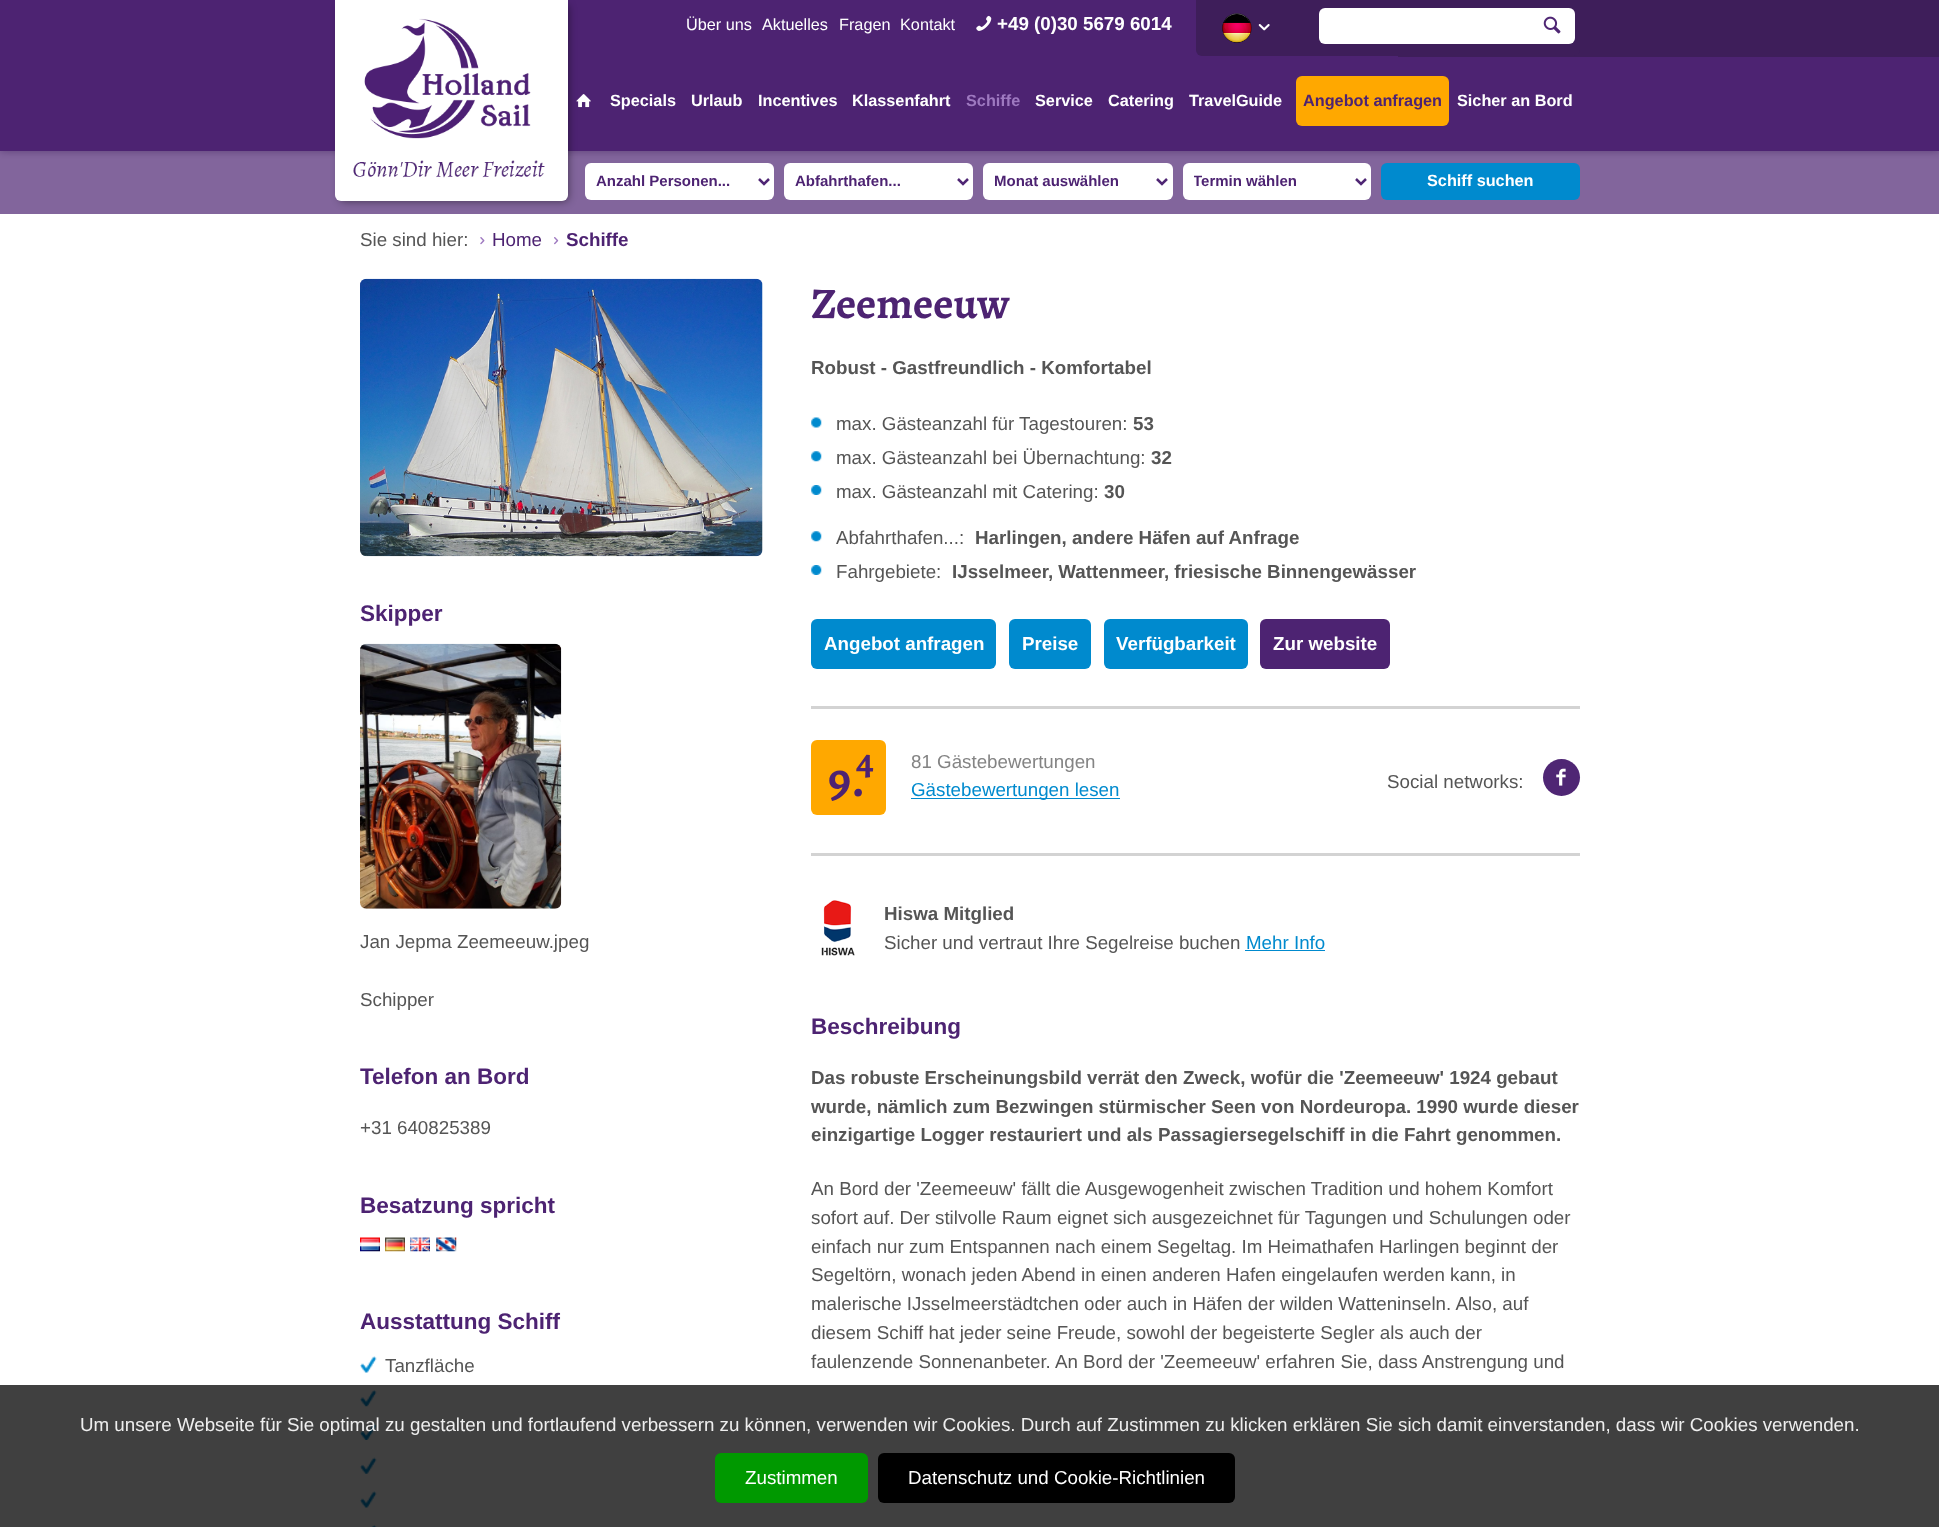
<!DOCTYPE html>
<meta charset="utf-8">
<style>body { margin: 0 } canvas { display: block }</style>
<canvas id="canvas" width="1939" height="1527"></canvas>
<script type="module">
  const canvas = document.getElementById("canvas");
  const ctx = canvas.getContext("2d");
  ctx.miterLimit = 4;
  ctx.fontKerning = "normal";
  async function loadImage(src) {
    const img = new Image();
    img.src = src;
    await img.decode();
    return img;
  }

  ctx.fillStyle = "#ffffff";
  ctx.fillRect(0, 0, 1939, 1527);
  ctx.fillStyle = "rgba(0, 0, 0, 0.5)";
  ctx.filter = "blur(4px)";
  ctx.beginPath();
  ctx.rect(0, 58, 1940, 93);
  ctx.fill();
  ctx.filter = "none";
  ctx.fillStyle = "#4d2372";
  ctx.fillRect(0, 0, 1939, 151);
  ctx.fillStyle = "#3e1e5a";
  ctx.fillRect(1398, 0, 541, 57);
  ctx.drawImage(await loadImage("img6.png"), 576, 94, 15, 14);
  ctx.fillStyle = "rgba(77, 35, 114, 0.7)";
  ctx.fillRect(0, 151, 1939, 63);
  ctx.fillStyle = "rgba(0, 0, 0, 0.5)";
  ctx.filter = "blur(4px)";
  ctx.beginPath();
  ctx.roundRect(340, 5, 228, 196, 4);
  ctx.fill();
  ctx.filter = "none";
  ctx.fillStyle = "#ffffff";
  ctx.beginPath();
  ctx.roundRect(335, 0, 233, 201, [0, 0, 6, 6]);
  ctx.fill();
  ctx.drawImage(await loadImage("img1.png"), 353, 18, 192, 160);
  ctx.font = "16.25px Liberation Sans";
  ctx.fillText("Über uns", 686, 30);
  ctx.fillText("Aktuelles", 762, 30);
  ctx.fillText("Fragen", 839, 30);
  ctx.fillText("Kontakt", 900, 30);
  ctx.drawImage(await loadImage("img2.png"), 976, 15, 16, 16);
  ctx.font = "bold 18.75px Liberation Sans";
  ctx.fillText("+49 (0)30 5679 6014", 997, 30);
  ctx.fillStyle = "#3e1e5a";
  ctx.beginPath();
  ctx.roundRect(1196, 0, 384, 56, [0, 0, 6, 6]);
  ctx.fill();
  ctx.drawImage(await loadImage("img3.png"), 1222, 13, 30, 30);
  ctx.drawImage(await loadImage("img4.png"), 1258, 24, 12, 7);
  ctx.fillStyle = "#ffffff";
  ctx.beginPath();
  ctx.roundRect(1319, 8, 256, 36, 6);
  ctx.fill();
  ctx.drawImage(await loadImage("img5.png"), 1543, 16, 18, 18);
  ctx.font = "bold 16.25px Liberation Sans";
  ctx.fillText("Specials", 610, 106);
  ctx.fillText("Urlaub", 691, 106);
  ctx.fillText("Incentives", 758, 106);
  ctx.fillText("Klassenfahrt", 852, 106);
  ctx.fillStyle = "#9e79c0";
  ctx.fillText("Schiffe", 966, 106);
  ctx.fillStyle = "#ffffff";
  ctx.fillText("Service", 1035, 106);
  ctx.fillText("Catering", 1108, 106);
  ctx.fillText("TravelGuide", 1189, 106);
  ctx.fillStyle = "#ffa800";
  ctx.beginPath();
  ctx.roundRect(1296, 76, 153, 50, 6);
  ctx.fill();
  ctx.fillStyle = "#4d2372";
  ctx.fillText("Angebot anfragen", 1303, 106);
  ctx.fillStyle = "#ffffff";
  ctx.fillText("Sicher an Bord", 1457, 106);
  ctx.beginPath();
  ctx.roundRect(585, 163, 189, 37, 6);
  ctx.fill();
  ctx.beginPath();
  ctx.moveTo(759, 179);
  ctx.lineTo(764, 184);
  ctx.lineTo(769, 179);
  ctx.strokeStyle = "#4f2674";
  ctx.lineWidth = 2.5;
  ctx.stroke();
  ctx.font = "bold 15px Liberation Sans";
  ctx.fillStyle = "#4d2372";
  ctx.fillText("Anzahl Personen...", 596, 186);
  ctx.fillStyle = "#ffffff";
  ctx.beginPath();
  ctx.roundRect(784, 163, 189, 37, 6);
  ctx.fill();
  ctx.beginPath();
  ctx.moveTo(958, 179);
  ctx.lineTo(963, 184);
  ctx.lineTo(968, 179);
  ctx.stroke();
  ctx.fillStyle = "#4d2372";
  ctx.fillText("Abfahrthafen...", 795, 186);
  ctx.fillStyle = "#ffffff";
  ctx.beginPath();
  ctx.roundRect(983, 163, 190, 37, 6);
  ctx.fill();
  ctx.beginPath();
  ctx.moveTo(1157, 179);
  ctx.lineTo(1162, 184);
  ctx.lineTo(1167, 179);
  ctx.stroke();
  ctx.fillStyle = "#4d2372";
  ctx.fillText("Monat auswählen", 994, 186);
  ctx.fillStyle = "#ffffff";
  ctx.beginPath();
  ctx.roundRect(1183, 163, 188, 37, 6);
  ctx.fill();
  ctx.beginPath();
  ctx.moveTo(1356, 179);
  ctx.lineTo(1361, 184);
  ctx.lineTo(1366, 179);
  ctx.stroke();
  ctx.save();
  ctx.beginPath();
  ctx.rect(1194, 171, 151, 20);
  ctx.clip();
  ctx.fillStyle = "#4d2372";
  ctx.fillText("Termin wählen", 1193, 186);
  ctx.restore();
  ctx.fillStyle = "#008ace";
  ctx.beginPath();
  ctx.roundRect(1381, 163, 199, 37, 6);
  ctx.fill();
  ctx.font = "bold 16.25px Liberation Sans";
  ctx.fillStyle = "#ffffff";
  ctx.fillText("Schiff suchen", 1427, 186);
  ctx.font = "18.75px Liberation Sans";
  ctx.fillStyle = "#555555";
  ctx.fillText("Sie sind hier:", 360, 246);
  ctx.drawImage(await loadImage("img7.png"), 480, 237, 5, 8);
  ctx.fillStyle = "#4d2372";
  ctx.fillText("Home", 492, 246);
  ctx.drawImage(await loadImage("img8.png"), 554, 237, 5, 8);
  ctx.font = "bold 18.75px Liberation Sans";
  ctx.fillText("Schiffe", 566, 246);
  ctx.drawImage(await loadImage("img9.png"), 360, 278, 403, 279);
  ctx.font = "bold 22.5px Liberation Sans";
  ctx.fillText("Skipper", 360, 621);
  ctx.drawImage(await loadImage("img10.png"), 360, 643, 202, 266);
  ctx.font = "18.75px Liberation Sans";
  ctx.fillStyle = "#555555";
  ctx.fillText("Jan Jepma Zeemeeuw.jpeg", 360, 948);
  ctx.fillText("Schipper", 360, 1006);
  ctx.font = "bold 22.5px Liberation Sans";
  ctx.fillStyle = "#4d2372";
  ctx.fillText("Telefon an Bord", 360, 1084);
  ctx.font = "18.75px Liberation Sans";
  ctx.fillStyle = "#555555";
  ctx.fillText("+31 640825389", 360, 1134);
  ctx.font = "bold 22.5px Liberation Sans";
  ctx.fillStyle = "#4d2372";
  ctx.fillText("Besatzung spricht", 360, 1213);
  ctx.drawImage(await loadImage("img11.png"), 360, 1237, 20, 15);
  ctx.drawImage(await loadImage("img12.png"), 385, 1237, 20, 15);
  ctx.drawImage(await loadImage("img13.png"), 410, 1237, 20, 15);
  ctx.drawImage(await loadImage("img14.png"), 436, 1237, 21, 15);
  ctx.fillText("Ausstattung Schiff", 360, 1329);
  ctx.drawImage(await loadImage("img15.png"), 360, 1356, 17, 17);
  ctx.font = "18.75px Liberation Sans";
  ctx.fillStyle = "#555555";
  ctx.fillText("Tanzfläche", 385, 1372);
  ctx.drawImage(await loadImage("img16.png"), 360, 1390, 17, 17);
  ctx.drawImage(await loadImage("img17.png"), 360, 1423, 17, 17);
  ctx.drawImage(await loadImage("img18.png"), 360, 1457, 17, 17);
  ctx.drawImage(await loadImage("img15.png"), 360, 1491, 17, 17);
  ctx.drawImage(await loadImage("img19.png"), 371, 1525, 6, 2);
  ctx.font = "bold 43.75px Alegreya";
  ctx.fillStyle = "#4d2372";
  ctx.fillText("Zeemeeuw", 811, 318);
  ctx.font = "bold 18.75px Liberation Sans";
  ctx.fillStyle = "#555555";
  ctx.fillText("Robust - Gastfreundlich - Komfortabel", 811, 374);
  ctx.drawImage(await loadImage("img20.png"), 811, 417, 11, 11);
  ctx.font = "18.75px Liberation Sans";
  ctx.fillText("max. Gästeanzahl für Tagestouren:", 836, 430);
  ctx.font = "bold 18.75px Liberation Sans";
  ctx.fillText("53", 1133, 430);
  ctx.drawImage(await loadImage("img21.png"), 811, 451, 11, 11);
  ctx.font = "18.75px Liberation Sans";
  ctx.fillText("max. Gästeanzahl bei Übernachtung:", 836, 464);
  ctx.font = "bold 18.75px Liberation Sans";
  ctx.fillText("32", 1151, 464);
  ctx.drawImage(await loadImage("img22.png"), 811, 485, 11, 10);
  ctx.font = "18.75px Liberation Sans";
  ctx.fillText("max. Gästeanzahl mit Catering:", 836, 498);
  ctx.font = "bold 18.75px Liberation Sans";
  ctx.fillText("30", 1104, 498);
  ctx.drawImage(await loadImage("img21.png"), 811, 531, 11, 11);
  ctx.font = "18.75px Liberation Sans";
  ctx.fillText("Abfahrthafen...:", 836, 544);
  ctx.font = "bold 18.75px Liberation Sans";
  ctx.fillText("Harlingen, andere Häfen auf Anfrage", 975, 544);
  ctx.drawImage(await loadImage("img22.png"), 811, 565, 11, 10);
  ctx.font = "18.75px Liberation Sans";
  ctx.fillText("Fahrgebiete:", 836, 578);
  ctx.font = "bold 18.75px Liberation Sans";
  ctx.fillText("IJsselmeer, Wattenmeer, friesische Binnengewässer", 952, 578);
  ctx.fillStyle = "#008ace";
  ctx.beginPath();
  ctx.roundRect(811, 619, 185, 50, 6);
  ctx.fill();
  ctx.fillStyle = "#ffffff";
  ctx.fillText("Angebot anfragen", 824, 650);
  ctx.fillStyle = "#008ace";
  ctx.beginPath();
  ctx.roundRect(1009, 619, 82, 50, 6);
  ctx.fill();
  ctx.fillStyle = "#ffffff";
  ctx.fillText("Preise", 1022, 650);
  ctx.fillStyle = "#008ace";
  ctx.beginPath();
  ctx.roundRect(1104, 619, 144, 50, 6);
  ctx.fill();
  ctx.fillStyle = "#ffffff";
  ctx.fillText("Verfügbarkeit", 1116, 650);
  ctx.fillStyle = "#4d2372";
  ctx.beginPath();
  ctx.roundRect(1260, 619, 130, 50, 6);
  ctx.fill();
  ctx.fillStyle = "#ffffff";
  ctx.fillText("Zur website", 1273, 650);
  ctx.fillStyle = "#d3d3d3";
  ctx.fillRect(811, 706, 769, 3);
  ctx.fillStyle = "#ffa800";
  ctx.beginPath();
  ctx.roundRect(811, 740, 75, 75, 6);
  ctx.fill();
  ctx.font = "bold 38px Alegreya";
  ctx.fillStyle = "#4d2372";
  ctx.fillText("4", 856, 774);
  ctx.font = "bold 50px Alegreya";
  ctx.fillText("9.", 828, 796);
  ctx.font = "18.75px Liberation Sans";
  ctx.fillStyle = "#848484";
  ctx.fillText("81 Gästebewertungen", 911, 768);
  ctx.fillStyle = "#008ace";
  ctx.fillRect(911, 798, 209, 1);
  ctx.fillText("Gästebewertungen lesen", 911, 796);
  ctx.fillStyle = "#555555";
  ctx.fillText("Social networks:", 1387, 788);
  ctx.fillStyle = "#4f2674";
  ctx.beginPath();
  ctx.arc(1561.5, 777.5, 18.5, 0, Math.PI * 2);
  ctx.fill();
  ctx.drawImage(await loadImage("img23.png"), 1556, 768, 10, 18);
  ctx.fillStyle = "#d3d3d3";
  ctx.fillRect(811, 853, 769, 3);
  ctx.drawImage(await loadImage("img24.png"), 821, 900, 34, 56);
  ctx.font = "bold 18.75px Liberation Sans";
  ctx.fillStyle = "#555555";
  ctx.fillText("Hiswa Mitglied", 884, 920);
  ctx.font = "18.75px Liberation Sans";
  ctx.fillText("Sicher und vertraut Ihre Segelreise buchen", 884, 949);
  ctx.fillStyle = "#008ace";
  ctx.fillText("Mehr Info", 1246, 949);
  ctx.fillRect(1245, 950, 80, 1);
  ctx.font = "bold 22.5px Liberation Sans";
  ctx.fillStyle = "#4d2372";
  ctx.fillText("Beschreibung", 811, 1034);
  ctx.font = "bold 18.75px Liberation Sans";
  ctx.fillStyle = "#555555";
  ctx.fillText("Das robuste Erscheinungsbild verrät den Zweck, wofür die 'Zeemeeuw' 1924 gebaut", 811, 1084);
  ctx.fillText("wurde, nämlich zum Bezwingen stürmischer Seen von Nordeuropa. 1990 wurde dieser", 811, 1113);
  ctx.fillText("einzigartige Logger restauriert und als Passagiersegelschiff in die Fahrt genommen.", 811, 1141);
  ctx.font = "18.75px Liberation Sans";
  ctx.fillText("An Bord der 'Zeemeeuw' fällt die Ausgewogenheit zwischen Tradition und hohem Komfort", 811, 1195);
  ctx.fillText("sofort auf. Der stilvolle Raum eignet sich ausgezeichnet für Tagungen und Schulungen oder", 811, 1224);
  ctx.fillText("einfach nur zum Entspannen nach einem Segeltag. Im Heimathafen Harlingen beginnt der", 811, 1253);
  ctx.fillText("Segeltörn, wonach jeden Abend in einen anderen Hafen eingelaufen werden kann, in", 811, 1281);
  ctx.fillText("malerische IJsselmeerstädtchen oder auch in Häfen der wilden Watteninseln. Also, auf", 811, 1310);
  ctx.fillText("diesem Schiff hat jeder seine Freude, sowohl der begeisterte Segler als auch der", 811, 1339);
  ctx.fillText("faulenzende Sonnenanbeter. An Bord der 'Zeemeeuw' erfahren Sie, dass Anstrengung und", 811, 1368);
  ctx.fillStyle = "rgba(0, 0, 0, 0.75)";
  ctx.fillRect(0, 1385, 1939, 142);
  ctx.fillStyle = "#eeeeee";
  ctx.fillText("Um unsere Webseite für Sie optimal zu gestalten und fortlaufend verbessern zu können, verwenden wir Cookies. Durch auf Zustimmen zu klicken erklären Sie sich damit einverstanden, dass wir Cookies verwenden.", 80, 1431);
  ctx.fillStyle = "#009900";
  ctx.beginPath();
  ctx.roundRect(715, 1453, 153, 50, 6);
  ctx.fill();
  ctx.fillStyle = "#ffffff";
  ctx.fillText("Zustimmen", 745, 1484);
  ctx.fillStyle = "#000000";
  ctx.beginPath();
  ctx.roundRect(878, 1453, 357, 50, 6);
  ctx.fill();
  ctx.fillStyle = "#ffffff";
  ctx.fillText("Datenschutz und Cookie-Richtlinien", 908, 1484);
</script>
